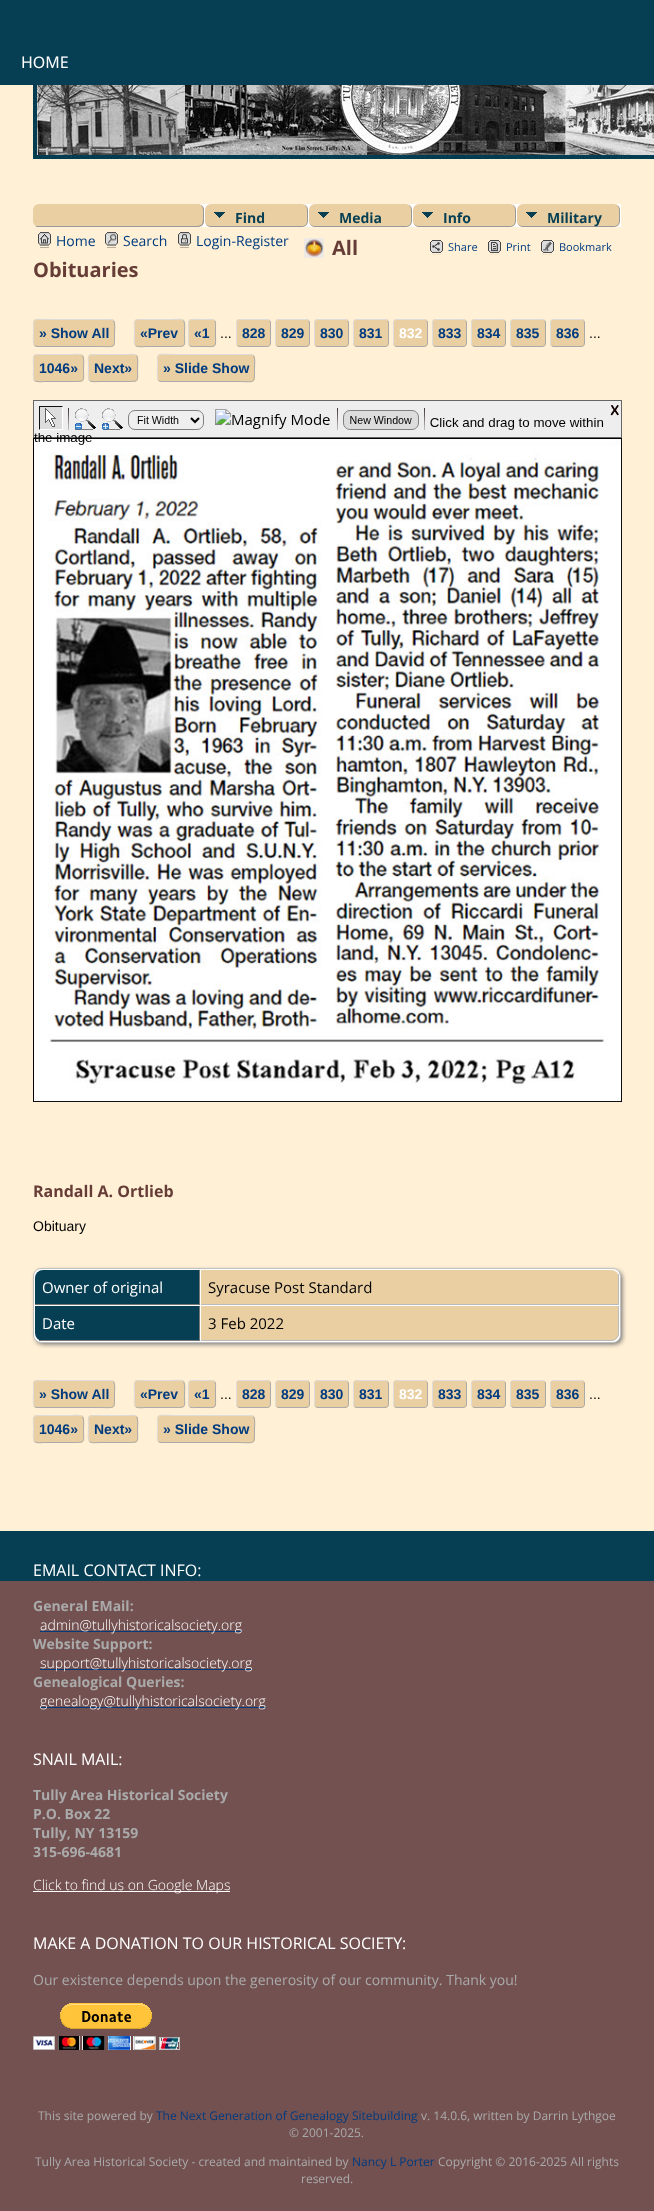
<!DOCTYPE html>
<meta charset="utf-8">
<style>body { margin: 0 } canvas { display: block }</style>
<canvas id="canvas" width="654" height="2211"></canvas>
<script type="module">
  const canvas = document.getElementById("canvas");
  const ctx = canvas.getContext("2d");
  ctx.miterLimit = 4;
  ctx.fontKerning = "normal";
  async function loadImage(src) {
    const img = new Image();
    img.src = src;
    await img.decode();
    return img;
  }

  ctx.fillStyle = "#fff0d6";
  ctx.fillRect(0, 0, 654, 2211);
  ctx.fillStyle = "#063e53";
  ctx.fillRect(0, 0, 654, 85);
  ctx.font = "16px 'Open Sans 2'";
  ctx.fillStyle = "#ffffff";
  ctx.fillText("HOME", 21, 68);
  ctx.drawImage(await loadImage("img1.png"), 33, 85, 621, 74);
  ctx.fillStyle = "#e9cfa2";
  ctx.beginPath();
  ctx.roundRect(33, 204, 588, 23, 6);
  ctx.fill();
  ctx.fillStyle = "#999999";
  ctx.fillRect(36, 226, 157, 1);
  ctx.fillStyle = "#ffffff";
  ctx.fillRect(198, 204, 423, 23);
  ctx.fillStyle = "#e9cfa2";
  ctx.beginPath();
  ctx.roundRect(193, 204, 11, 23, [0, 6, 6, 0]);
  ctx.fill();
  ctx.fillStyle = "#999999";
  ctx.beginPath();
  ctx.moveTo(193, 204);
  ctx.bezierCurveTo(197, 204, 203, 203.5, 204, 209);
  ctx.lineTo(204, 222);
  ctx.bezierCurveTo(203, 227.5, 197, 227, 193, 227);
  ctx.closePath();
  ctx.moveTo(193, 204);
  ctx.lineTo(199, 204);
  ctx.bezierCurveTo(204, 205.5, 203, 212, 203, 215.5);
  ctx.bezierCurveTo(203, 225.5, 202.5, 226, 193, 226);
  ctx.closePath();
  ctx.fill("evenodd");
  ctx.fillStyle = "#e9cfa2";
  ctx.beginPath();
  ctx.roundRect(205, 204, 103, 23, 6);
  ctx.fill();
  ctx.drawImage(await loadImage("img2.png"), 214, 212, 11, 6);
  ctx.fillStyle = "#999999";
  ctx.beginPath();
  ctx.moveTo(211, 204);
  ctx.lineTo(302, 204);
  ctx.bezierCurveTo(305, 204, 308, 207, 308, 210);
  ctx.lineTo(308, 221);
  ctx.bezierCurveTo(308, 224, 305, 227, 302, 227);
  ctx.lineTo(211, 227);
  ctx.bezierCurveTo(208, 227, 205, 224, 205, 221);
  ctx.lineTo(205, 210);
  ctx.bezierCurveTo(205, 207, 208, 204, 211, 204);
  ctx.closePath();
  ctx.moveTo(211, 204);
  ctx.lineTo(302, 204);
  ctx.bezierCurveTo(305, 204, 307, 207, 307, 210);
  ctx.lineTo(307, 221);
  ctx.bezierCurveTo(307, 224, 305, 226, 302, 226);
  ctx.lineTo(211, 226);
  ctx.bezierCurveTo(208, 226, 205, 224, 205, 221);
  ctx.lineTo(205, 210);
  ctx.bezierCurveTo(205, 207, 208, 204, 211, 204);
  ctx.closePath();
  ctx.fill("evenodd");
  ctx.font = "bold 14px Open Sans";
  ctx.fillStyle = "#063e53";
  ctx.fillText("Find", 235, 223);
  ctx.fillStyle = "#e9cfa2";
  ctx.beginPath();
  ctx.roundRect(309, 204, 103, 23, 6);
  ctx.fill();
  ctx.drawImage(await loadImage("img2.png"), 318, 212, 11, 6);
  ctx.fillStyle = "#999999";
  ctx.beginPath();
  ctx.moveTo(315, 204);
  ctx.lineTo(406, 204);
  ctx.bezierCurveTo(409, 204, 412, 207, 412, 210);
  ctx.lineTo(412, 221);
  ctx.bezierCurveTo(412, 224, 409, 227, 406, 227);
  ctx.lineTo(315, 227);
  ctx.bezierCurveTo(312, 227, 309, 224, 309, 221);
  ctx.lineTo(309, 210);
  ctx.bezierCurveTo(309, 207, 312, 204, 315, 204);
  ctx.closePath();
  ctx.moveTo(315, 204);
  ctx.lineTo(406, 204);
  ctx.bezierCurveTo(409, 204, 411, 207, 411, 210);
  ctx.lineTo(411, 221);
  ctx.bezierCurveTo(411, 224, 409, 226, 406, 226);
  ctx.lineTo(315, 226);
  ctx.bezierCurveTo(312, 226, 309, 224, 309, 221);
  ctx.lineTo(309, 210);
  ctx.bezierCurveTo(309, 207, 312, 204, 315, 204);
  ctx.closePath();
  ctx.fill("evenodd");
  ctx.fillStyle = "#063e53";
  ctx.fillText("Media", 339, 223);
  ctx.fillStyle = "#e9cfa2";
  ctx.beginPath();
  ctx.roundRect(413, 204, 103, 23, 6);
  ctx.fill();
  ctx.drawImage(await loadImage("img2.png"), 422, 212, 11, 6);
  ctx.fillStyle = "#999999";
  ctx.beginPath();
  ctx.moveTo(419, 204);
  ctx.lineTo(510, 204);
  ctx.bezierCurveTo(513, 204, 516, 207, 516, 210);
  ctx.lineTo(516, 221);
  ctx.bezierCurveTo(516, 224, 513, 227, 510, 227);
  ctx.lineTo(419, 227);
  ctx.bezierCurveTo(416, 227, 413, 224, 413, 221);
  ctx.lineTo(413, 210);
  ctx.bezierCurveTo(413, 207, 416, 204, 419, 204);
  ctx.closePath();
  ctx.moveTo(419, 204);
  ctx.lineTo(510, 204);
  ctx.bezierCurveTo(513, 204, 515, 207, 515, 210);
  ctx.lineTo(515, 221);
  ctx.bezierCurveTo(515, 224, 513, 226, 510, 226);
  ctx.lineTo(419, 226);
  ctx.bezierCurveTo(416, 226, 413, 224, 413, 221);
  ctx.lineTo(413, 210);
  ctx.bezierCurveTo(413, 207, 416, 204, 419, 204);
  ctx.closePath();
  ctx.fill("evenodd");
  ctx.fillStyle = "#063e53";
  ctx.fillText("Info", 443, 223);
  ctx.fillStyle = "#e9cfa2";
  ctx.beginPath();
  ctx.roundRect(517, 204, 103, 23, 6);
  ctx.fill();
  ctx.drawImage(await loadImage("img2.png"), 526, 212, 11, 6);
  ctx.fillStyle = "#999999";
  ctx.beginPath();
  ctx.moveTo(523, 204);
  ctx.lineTo(614, 204);
  ctx.bezierCurveTo(617, 204, 620, 207, 620, 210);
  ctx.lineTo(620, 221);
  ctx.bezierCurveTo(620, 224, 617, 227, 614, 227);
  ctx.lineTo(523, 227);
  ctx.bezierCurveTo(520, 227, 517, 224, 517, 221);
  ctx.lineTo(517, 210);
  ctx.bezierCurveTo(517, 207, 520, 204, 523, 204);
  ctx.closePath();
  ctx.moveTo(523, 204);
  ctx.lineTo(614, 204);
  ctx.bezierCurveTo(617, 204, 619, 207, 619, 210);
  ctx.lineTo(619, 221);
  ctx.bezierCurveTo(619, 224, 617, 226, 614, 226);
  ctx.lineTo(523, 226);
  ctx.bezierCurveTo(520, 226, 517, 224, 517, 221);
  ctx.lineTo(517, 210);
  ctx.bezierCurveTo(517, 207, 520, 204, 523, 204);
  ctx.closePath();
  ctx.fill("evenodd");
  ctx.fillStyle = "#063e53";
  ctx.fillText("Military", 547, 223);
  ctx.drawImage(await loadImage("img3.png"), 38, 232, 13, 16);
  ctx.font = "14px Open Sans";
  ctx.fillStyle = "#003b7f";
  ctx.fillText("Home", 56, 246);
  ctx.drawImage(await loadImage("img4.png"), 105, 232, 13, 16);
  ctx.fillText("Search", 123, 246);
  ctx.drawImage(await loadImage("img5.png"), 178, 232, 13, 16);
  ctx.fillText("Login-Register", 196, 246);
  ctx.drawImage(await loadImage("img6.png"), 304, 238, 20, 20);
  ctx.font = "bold 20px Open Sans";
  ctx.fillStyle = "#663c36";
  ctx.fillText("All", 332, 255);
  ctx.fillText("Obituaries", 33, 277);
  ctx.drawImage(await loadImage("img7.png"), 430, 240, 13, 15);
  ctx.font = "11px Open Sans";
  ctx.fillStyle = "#003b7f";
  ctx.fillText("Share", 448, 251);
  ctx.drawImage(await loadImage("img8.png"), 488, 240, 13, 15);
  ctx.fillText("Print", 506, 251);
  ctx.drawImage(await loadImage("img9.png"), 541, 240, 13, 15);
  ctx.fillText("Bookmark", 559, 251);
  ctx.fillStyle = "#e9cfa2";
  ctx.beginPath();
  ctx.roundRect(33, 319, 82, 28, 4);
  ctx.fill();
  ctx.beginPath();
  ctx.moveTo(113.5, 320.5);
  ctx.bezierCurveTo(115.5, 323, 114.5, 330.5, 114.5, 333);
  ctx.bezierCurveTo(114.5, 349, 116, 346.5, 98.5, 346.5);
  ctx.lineTo(37, 346.5);
  ctx.lineTo(34.5, 345.5);
  ctx.strokeStyle = "#aaaaaa";
  ctx.stroke();
  ctx.beginPath();
  ctx.moveTo(34.5, 345.5);
  ctx.bezierCurveTo(32.5, 343, 33.5, 335.5, 33.5, 333);
  ctx.bezierCurveTo(33.5, 317, 32, 319.5, 49.5, 319.5);
  ctx.lineTo(111, 319.5);
  ctx.lineTo(113.5, 320.5);
  ctx.strokeStyle = "#dddddd";
  ctx.stroke();
  ctx.font = "bold 14px Liberation Sans";
  ctx.fillStyle = "#003b7f";
  ctx.fillText("» Show All", 39, 338);
  ctx.fillStyle = "#e9cfa2";
  ctx.beginPath();
  ctx.roundRect(134, 319, 51, 28, 4);
  ctx.fill();
  ctx.beginPath();
  ctx.moveTo(183.5, 320.5);
  ctx.bezierCurveTo(185.5, 323, 184.5, 330.5, 184.5, 333);
  ctx.bezierCurveTo(184.5, 346.5, 187, 346.5, 174, 346.5);
  ctx.lineTo(145, 346.5);
  ctx.bezierCurveTo(144, 346.5, 137.5, 347.5, 135.5, 345.5);
  ctx.strokeStyle = "#aaaaaa";
  ctx.stroke();
  ctx.beginPath();
  ctx.moveTo(135.5, 345.5);
  ctx.bezierCurveTo(133.5, 343, 134.5, 335.5, 134.5, 333);
  ctx.bezierCurveTo(134.5, 319.5, 132, 319.5, 145, 319.5);
  ctx.lineTo(174, 319.5);
  ctx.bezierCurveTo(175, 319.5, 181.5, 318.5, 183.5, 320.5);
  ctx.strokeStyle = "#dddddd";
  ctx.stroke();
  ctx.fillStyle = "#003b7f";
  ctx.fillText("«Prev", 140, 338);
  ctx.fillStyle = "#e9cfa2";
  ctx.beginPath();
  ctx.roundRect(188, 319, 28, 28, 4);
  ctx.fill();
  ctx.beginPath();
  ctx.moveTo(214.5, 320.5);
  ctx.bezierCurveTo(216, 322, 215.5, 324.5, 215.5, 326.5);
  ctx.lineTo(215.5, 333);
  ctx.bezierCurveTo(215.5, 348.5, 217.5, 346.5, 202, 346.5);
  ctx.lineTo(195.5, 346.5);
  ctx.bezierCurveTo(193.5, 346.5, 191, 347, 189.5, 345.5);
  ctx.strokeStyle = "#aaaaaa";
  ctx.stroke();
  ctx.beginPath();
  ctx.moveTo(189.5, 345.5);
  ctx.bezierCurveTo(188, 344, 188.5, 341.5, 188.5, 339.5);
  ctx.lineTo(188.5, 333);
  ctx.bezierCurveTo(188.5, 317.5, 186.5, 319.5, 202, 319.5);
  ctx.lineTo(208.5, 319.5);
  ctx.bezierCurveTo(210.5, 319.5, 213, 319, 214.5, 320.5);
  ctx.strokeStyle = "#dddddd";
  ctx.stroke();
  ctx.fillStyle = "#003b7f";
  ctx.fillText("«1", 194, 338);
  ctx.font = "14px Liberation Sans";
  ctx.fillStyle = "#000000";
  ctx.fillText("...", 220, 338);
  ctx.fillStyle = "#e9cfa2";
  ctx.beginPath();
  ctx.roundRect(236, 319, 35, 28, 4);
  ctx.fill();
  ctx.beginPath();
  ctx.moveTo(269.5, 320.5);
  ctx.bezierCurveTo(270, 321, 270.5, 322, 270.5, 323);
  ctx.lineTo(270.5, 343);
  ctx.bezierCurveTo(270.5, 344, 270, 345, 269.5, 345.5);
  ctx.bezierCurveTo(269, 346, 268, 346.5, 267, 346.5);
  ctx.lineTo(240, 346.5);
  ctx.bezierCurveTo(239, 346.5, 238, 346, 237.5, 345.5);
  ctx.strokeStyle = "#aaaaaa";
  ctx.stroke();
  ctx.beginPath();
  ctx.moveTo(237.5, 345.5);
  ctx.bezierCurveTo(237, 345, 236.5, 344, 236.5, 343);
  ctx.lineTo(236.5, 323);
  ctx.bezierCurveTo(236.5, 322, 237, 321, 237.5, 320.5);
  ctx.bezierCurveTo(238, 320, 239, 319.5, 240, 319.5);
  ctx.lineTo(267, 319.5);
  ctx.bezierCurveTo(268, 319.5, 269, 320, 269.5, 320.5);
  ctx.strokeStyle = "#dddddd";
  ctx.stroke();
  ctx.font = "bold 14px Liberation Sans";
  ctx.fillStyle = "#003b7f";
  ctx.fillText("828", 242, 338);
  ctx.fillStyle = "#e9cfa2";
  ctx.beginPath();
  ctx.roundRect(275, 319, 35, 28, 4);
  ctx.fill();
  ctx.beginPath();
  ctx.moveTo(308.5, 320.5);
  ctx.bezierCurveTo(309, 321, 309.5, 322, 309.5, 323);
  ctx.lineTo(309.5, 343);
  ctx.bezierCurveTo(309.5, 344, 309, 345, 308.5, 345.5);
  ctx.bezierCurveTo(308, 346, 307, 346.5, 306, 346.5);
  ctx.lineTo(279, 346.5);
  ctx.bezierCurveTo(278, 346.5, 277, 346, 276.5, 345.5);
  ctx.strokeStyle = "#aaaaaa";
  ctx.stroke();
  ctx.beginPath();
  ctx.moveTo(276.5, 345.5);
  ctx.bezierCurveTo(276, 345, 275.5, 344, 275.5, 343);
  ctx.lineTo(275.5, 323);
  ctx.bezierCurveTo(275.5, 322, 276, 321, 276.5, 320.5);
  ctx.bezierCurveTo(277, 320, 278, 319.5, 279, 319.5);
  ctx.lineTo(306, 319.5);
  ctx.bezierCurveTo(307, 319.5, 308, 320, 308.5, 320.5);
  ctx.strokeStyle = "#dddddd";
  ctx.stroke();
  ctx.fillStyle = "#003b7f";
  ctx.fillText("829", 281, 338);
  ctx.fillStyle = "#e9cfa2";
  ctx.beginPath();
  ctx.roundRect(314, 319, 35, 28, 4);
  ctx.fill();
  ctx.beginPath();
  ctx.moveTo(347.5, 320.5);
  ctx.bezierCurveTo(348, 321, 348.5, 322, 348.5, 323);
  ctx.lineTo(348.5, 343);
  ctx.bezierCurveTo(348.5, 344, 348, 345, 347.5, 345.5);
  ctx.bezierCurveTo(347, 346, 346, 346.5, 345, 346.5);
  ctx.lineTo(318, 346.5);
  ctx.bezierCurveTo(317, 346.5, 316, 346, 315.5, 345.5);
  ctx.strokeStyle = "#aaaaaa";
  ctx.stroke();
  ctx.beginPath();
  ctx.moveTo(315.5, 345.5);
  ctx.bezierCurveTo(315, 345, 314.5, 344, 314.5, 343);
  ctx.lineTo(314.5, 323);
  ctx.bezierCurveTo(314.5, 322, 315, 321, 315.5, 320.5);
  ctx.bezierCurveTo(316, 320, 317, 319.5, 318, 319.5);
  ctx.lineTo(345, 319.5);
  ctx.bezierCurveTo(346, 319.5, 347, 320, 347.5, 320.5);
  ctx.strokeStyle = "#dddddd";
  ctx.stroke();
  ctx.fillStyle = "#003b7f";
  ctx.fillText("830", 320, 338);
  ctx.fillStyle = "#e9cfa2";
  ctx.beginPath();
  ctx.roundRect(353, 319, 36, 28, 4);
  ctx.fill();
  ctx.beginPath();
  ctx.moveTo(387.5, 320.5);
  ctx.bezierCurveTo(388, 321, 388.5, 322, 388.5, 323);
  ctx.lineTo(388.5, 343);
  ctx.bezierCurveTo(388.5, 344, 388, 345, 387.5, 345.5);
  ctx.bezierCurveTo(387, 346, 386, 346.5, 385, 346.5);
  ctx.lineTo(357, 346.5);
  ctx.bezierCurveTo(356, 346.5, 355, 346, 354.5, 345.5);
  ctx.strokeStyle = "#aaaaaa";
  ctx.stroke();
  ctx.beginPath();
  ctx.moveTo(354.5, 345.5);
  ctx.bezierCurveTo(354, 345, 353.5, 344, 353.5, 343);
  ctx.lineTo(353.5, 323);
  ctx.bezierCurveTo(353.5, 322, 354, 321, 354.5, 320.5);
  ctx.bezierCurveTo(355, 320, 356, 319.5, 357, 319.5);
  ctx.lineTo(385, 319.5);
  ctx.bezierCurveTo(386, 319.5, 387, 320, 387.5, 320.5);
  ctx.strokeStyle = "#dddddd";
  ctx.stroke();
  ctx.fillStyle = "#003b7f";
  ctx.fillText("831", 359, 338);
  ctx.fillStyle = "#e9cfa2";
  ctx.beginPath();
  ctx.roundRect(393, 319, 35, 28, 4);
  ctx.fill();
  ctx.beginPath();
  ctx.moveTo(426.5, 320.5);
  ctx.bezierCurveTo(427, 321, 427.5, 322, 427.5, 323);
  ctx.lineTo(427.5, 343);
  ctx.bezierCurveTo(427.5, 344, 427, 345, 426.5, 345.5);
  ctx.bezierCurveTo(426, 346, 425, 346.5, 424, 346.5);
  ctx.lineTo(397, 346.5);
  ctx.bezierCurveTo(396, 346.5, 395, 346, 394.5, 345.5);
  ctx.strokeStyle = "#aaaaaa";
  ctx.stroke();
  ctx.beginPath();
  ctx.moveTo(394.5, 345.5);
  ctx.bezierCurveTo(394, 345, 393.5, 344, 393.5, 343);
  ctx.lineTo(393.5, 323);
  ctx.bezierCurveTo(393.5, 322, 394, 321, 394.5, 320.5);
  ctx.bezierCurveTo(395, 320, 396, 319.5, 397, 319.5);
  ctx.lineTo(424, 319.5);
  ctx.bezierCurveTo(425, 319.5, 426, 320, 426.5, 320.5);
  ctx.strokeStyle = "#dddddd";
  ctx.stroke();
  ctx.fillStyle = "#ffffff";
  ctx.fillText("832", 399, 338);
  ctx.fillStyle = "#e9cfa2";
  ctx.beginPath();
  ctx.roundRect(432, 319, 35, 28, 4);
  ctx.fill();
  ctx.beginPath();
  ctx.moveTo(465.5, 320.5);
  ctx.bezierCurveTo(466, 321, 466.5, 322, 466.5, 323);
  ctx.lineTo(466.5, 343);
  ctx.bezierCurveTo(466.5, 344, 466, 345, 465.5, 345.5);
  ctx.bezierCurveTo(465, 346, 464, 346.5, 463, 346.5);
  ctx.lineTo(436, 346.5);
  ctx.bezierCurveTo(435, 346.5, 434, 346, 433.5, 345.5);
  ctx.strokeStyle = "#aaaaaa";
  ctx.stroke();
  ctx.beginPath();
  ctx.moveTo(433.5, 345.5);
  ctx.bezierCurveTo(433, 345, 432.5, 344, 432.5, 343);
  ctx.lineTo(432.5, 323);
  ctx.bezierCurveTo(432.5, 322, 433, 321, 433.5, 320.5);
  ctx.bezierCurveTo(434, 320, 435, 319.5, 436, 319.5);
  ctx.lineTo(463, 319.5);
  ctx.bezierCurveTo(464, 319.5, 465, 320, 465.5, 320.5);
  ctx.strokeStyle = "#dddddd";
  ctx.stroke();
  ctx.fillStyle = "#003b7f";
  ctx.fillText("833", 438, 338);
  ctx.fillStyle = "#e9cfa2";
  ctx.beginPath();
  ctx.roundRect(471, 319, 35, 28, 4);
  ctx.fill();
  ctx.beginPath();
  ctx.moveTo(504.5, 320.5);
  ctx.bezierCurveTo(505, 321, 505.5, 322, 505.5, 323);
  ctx.lineTo(505.5, 343);
  ctx.bezierCurveTo(505.5, 344, 505, 345, 504.5, 345.5);
  ctx.bezierCurveTo(504, 346, 503, 346.5, 502, 346.5);
  ctx.lineTo(475, 346.5);
  ctx.bezierCurveTo(474, 346.5, 473, 346, 472.5, 345.5);
  ctx.strokeStyle = "#aaaaaa";
  ctx.stroke();
  ctx.beginPath();
  ctx.moveTo(472.5, 345.5);
  ctx.bezierCurveTo(472, 345, 471.5, 344, 471.5, 343);
  ctx.lineTo(471.5, 323);
  ctx.bezierCurveTo(471.5, 322, 472, 321, 472.5, 320.5);
  ctx.bezierCurveTo(473, 320, 474, 319.5, 475, 319.5);
  ctx.lineTo(502, 319.5);
  ctx.bezierCurveTo(503, 319.5, 504, 320, 504.5, 320.5);
  ctx.strokeStyle = "#dddddd";
  ctx.stroke();
  ctx.fillStyle = "#003b7f";
  ctx.fillText("834", 477, 338);
  ctx.fillStyle = "#e9cfa2";
  ctx.beginPath();
  ctx.roundRect(510, 319, 36, 28, 4);
  ctx.fill();
  ctx.beginPath();
  ctx.moveTo(544.5, 320.5);
  ctx.bezierCurveTo(545, 321, 545.5, 322, 545.5, 323);
  ctx.lineTo(545.5, 343);
  ctx.bezierCurveTo(545.5, 344, 545, 345, 544.5, 345.5);
  ctx.bezierCurveTo(544, 346, 543, 346.5, 542, 346.5);
  ctx.lineTo(514, 346.5);
  ctx.bezierCurveTo(513, 346.5, 512, 346, 511.5, 345.5);
  ctx.strokeStyle = "#aaaaaa";
  ctx.stroke();
  ctx.beginPath();
  ctx.moveTo(511.5, 345.5);
  ctx.bezierCurveTo(511, 345, 510.5, 344, 510.5, 343);
  ctx.lineTo(510.5, 323);
  ctx.bezierCurveTo(510.5, 322, 511, 321, 511.5, 320.5);
  ctx.bezierCurveTo(512, 320, 513, 319.5, 514, 319.5);
  ctx.lineTo(542, 319.5);
  ctx.bezierCurveTo(543, 319.5, 544, 320, 544.5, 320.5);
  ctx.strokeStyle = "#dddddd";
  ctx.stroke();
  ctx.fillStyle = "#003b7f";
  ctx.fillText("835", 516, 338);
  ctx.fillStyle = "#e9cfa2";
  ctx.beginPath();
  ctx.roundRect(550, 319, 35, 28, 4);
  ctx.fill();
  ctx.beginPath();
  ctx.moveTo(583.5, 320.5);
  ctx.bezierCurveTo(584, 321, 584.5, 322, 584.5, 323);
  ctx.lineTo(584.5, 343);
  ctx.bezierCurveTo(584.5, 344, 584, 345, 583.5, 345.5);
  ctx.bezierCurveTo(583, 346, 582, 346.5, 581, 346.5);
  ctx.lineTo(554, 346.5);
  ctx.bezierCurveTo(553, 346.5, 552, 346, 551.5, 345.5);
  ctx.strokeStyle = "#aaaaaa";
  ctx.stroke();
  ctx.beginPath();
  ctx.moveTo(551.5, 345.5);
  ctx.bezierCurveTo(551, 345, 550.5, 344, 550.5, 343);
  ctx.lineTo(550.5, 323);
  ctx.bezierCurveTo(550.5, 322, 551, 321, 551.5, 320.5);
  ctx.bezierCurveTo(552, 320, 553, 319.5, 554, 319.5);
  ctx.lineTo(581, 319.5);
  ctx.bezierCurveTo(582, 319.5, 583, 320, 583.5, 320.5);
  ctx.strokeStyle = "#dddddd";
  ctx.stroke();
  ctx.fillStyle = "#003b7f";
  ctx.fillText("836", 556, 338);
  ctx.font = "14px Liberation Sans";
  ctx.fillStyle = "#000000";
  ctx.fillText("...", 589, 338);
  ctx.fillStyle = "#e9cfa2";
  ctx.beginPath();
  ctx.roundRect(33, 354, 51, 28, 4);
  ctx.fill();
  ctx.beginPath();
  ctx.moveTo(82.5, 355.5);
  ctx.bezierCurveTo(84.5, 358, 83.5, 365.5, 83.5, 368);
  ctx.bezierCurveTo(83.5, 381.5, 86, 381.5, 73, 381.5);
  ctx.lineTo(44, 381.5);
  ctx.bezierCurveTo(43, 381.5, 36.5, 382.5, 34.5, 380.5);
  ctx.strokeStyle = "#aaaaaa";
  ctx.stroke();
  ctx.beginPath();
  ctx.moveTo(34.5, 380.5);
  ctx.bezierCurveTo(32.5, 378, 33.5, 370.5, 33.5, 368);
  ctx.bezierCurveTo(33.5, 354.5, 31, 354.5, 44, 354.5);
  ctx.lineTo(73, 354.5);
  ctx.bezierCurveTo(74, 354.5, 80.5, 353.5, 82.5, 355.5);
  ctx.strokeStyle = "#dddddd";
  ctx.stroke();
  ctx.font = "bold 14px Liberation Sans";
  ctx.fillStyle = "#003b7f";
  ctx.fillText("1046»", 39, 373);
  ctx.fillStyle = "#e9cfa2";
  ctx.beginPath();
  ctx.roundRect(88, 354, 50, 28, 4);
  ctx.fill();
  ctx.beginPath();
  ctx.moveTo(136.5, 355.5);
  ctx.bezierCurveTo(138.5, 358, 137.5, 365.5, 137.5, 368);
  ctx.bezierCurveTo(137.5, 381, 140, 381.5, 127, 381.5);
  ctx.lineTo(99, 381.5);
  ctx.bezierCurveTo(97.5, 381.5, 91.5, 382.5, 89.5, 380.5);
  ctx.strokeStyle = "#aaaaaa";
  ctx.stroke();
  ctx.beginPath();
  ctx.moveTo(89.5, 380.5);
  ctx.bezierCurveTo(87.5, 378, 88.5, 370.5, 88.5, 368);
  ctx.bezierCurveTo(88.5, 355, 86, 354.5, 99, 354.5);
  ctx.lineTo(127, 354.5);
  ctx.bezierCurveTo(128.5, 354.5, 134.5, 353.5, 136.5, 355.5);
  ctx.strokeStyle = "#dddddd";
  ctx.stroke();
  ctx.fillStyle = "#003b7f";
  ctx.fillText("Next»", 94, 373);
  ctx.fillStyle = "#e9cfa2";
  ctx.beginPath();
  ctx.roundRect(157, 354, 98, 28, 4);
  ctx.fill();
  ctx.beginPath();
  ctx.moveTo(253.5, 355.5);
  ctx.bezierCurveTo(255.5, 358, 254.5, 365.5, 254.5, 368);
  ctx.bezierCurveTo(254.5, 385, 255.5, 381.5, 236, 381.5);
  ctx.lineTo(161, 381.5);
  ctx.lineTo(158.5, 380.5);
  ctx.strokeStyle = "#aaaaaa";
  ctx.stroke();
  ctx.beginPath();
  ctx.moveTo(158.5, 380.5);
  ctx.bezierCurveTo(156.5, 378, 157.5, 370.5, 157.5, 368);
  ctx.bezierCurveTo(157.5, 351, 156.5, 354.5, 176, 354.5);
  ctx.lineTo(251, 354.5);
  ctx.lineTo(253.5, 355.5);
  ctx.strokeStyle = "#dddddd";
  ctx.stroke();
  ctx.fillStyle = "#003b7f";
  ctx.fillText("» Slide Show", 163, 373);
  ctx.drawImage(await loadImage("img10.png"), 33, 400, 589, 702);
  ctx.font = "bold 16px Open Sans";
  ctx.fillStyle = "#663c36";
  ctx.fillText("Randall A. Ortlieb", 33, 1197);
  ctx.font = "14px Liberation Sans";
  ctx.fillStyle = "#000000";
  ctx.fillText("Obituary", 33, 1231);
  ctx.fillStyle = "#666666";
  ctx.filter = "blur(2.5px)";
  ctx.beginPath();
  ctx.roundRect(36, 1271, 586, 73, 7);
  ctx.fill();
  ctx.filter = "none";
  ctx.fillStyle = "#ffffff";
  ctx.beginPath();
  ctx.roundRect(33.5, 1268.5, 587, 74, 7.5);
  ctx.fill();
  ctx.strokeStyle = "#c0c0c0";
  ctx.stroke();
  ctx.fillStyle = "#063e53";
  ctx.beginPath();
  ctx.roundRect(35, 1270, 165, 35, [8, 0, 0, 0]);
  ctx.fill();
  ctx.fillStyle = "#777777";
  ctx.fillRect(199, 1270, 1, 35);
  ctx.fillRect(35, 1304, 165, 1);
  ctx.font = "15px Open Sans";
  ctx.fillStyle = "#ffffff";
  ctx.fillText("Owner of original", 42, 1293);
  ctx.fillStyle = "#e9cfa2";
  ctx.beginPath();
  ctx.roundRect(201, 1270, 418, 35, [0, 8, 0, 0]);
  ctx.fill();
  ctx.fillStyle = "#bbbbbb";
  ctx.fillRect(618, 1274, 1, 31);
  ctx.fillRect(201, 1304, 418, 1);
  ctx.fillStyle = "#000000";
  ctx.fillText("Syracuse Post Standard", 208, 1293);
  ctx.fillStyle = "#063e53";
  ctx.beginPath();
  ctx.roundRect(35, 1306, 165, 35, [0, 0, 0, 8]);
  ctx.fill();
  ctx.fillStyle = "#777777";
  ctx.fillRect(199, 1306, 1, 35);
  ctx.fillRect(39, 1340, 161, 1);
  ctx.fillStyle = "#ffffff";
  ctx.fillText("Date", 42, 1329);
  ctx.fillStyle = "#e9cfa2";
  ctx.beginPath();
  ctx.roundRect(201, 1306, 418, 35, [0, 0, 8, 0]);
  ctx.fill();
  ctx.fillStyle = "#bbbbbb";
  ctx.beginPath();
  ctx.moveTo(201, 1306);
  ctx.lineTo(619, 1306);
  ctx.lineTo(619, 1333);
  ctx.bezierCurveTo(619, 1337, 615, 1341, 611, 1341);
  ctx.lineTo(201, 1341);
  ctx.closePath();
  ctx.moveTo(201, 1306);
  ctx.lineTo(618, 1306);
  ctx.lineTo(618, 1333);
  ctx.bezierCurveTo(618, 1337, 615, 1340, 611, 1340);
  ctx.lineTo(201, 1340);
  ctx.closePath();
  ctx.fill("evenodd");
  ctx.fillStyle = "#000000";
  ctx.fillText("3 Feb 2022", 208, 1329);
  ctx.fillStyle = "#e9cfa2";
  ctx.beginPath();
  ctx.roundRect(33, 1380, 82, 28, 4);
  ctx.fill();
  ctx.beginPath();
  ctx.moveTo(113.5, 1381.5);
  ctx.bezierCurveTo(115.5, 1384, 114.5, 1391.5, 114.5, 1394);
  ctx.bezierCurveTo(114.5, 1410, 116, 1407.5, 98.5, 1407.5);
  ctx.lineTo(37, 1407.5);
  ctx.lineTo(34.5, 1406.5);
  ctx.strokeStyle = "#aaaaaa";
  ctx.stroke();
  ctx.beginPath();
  ctx.moveTo(34.5, 1406.5);
  ctx.bezierCurveTo(32.5, 1404, 33.5, 1396.5, 33.5, 1394);
  ctx.bezierCurveTo(33.5, 1378, 32, 1380.5, 49.5, 1380.5);
  ctx.lineTo(111, 1380.5);
  ctx.lineTo(113.5, 1381.5);
  ctx.strokeStyle = "#dddddd";
  ctx.stroke();
  ctx.font = "bold 14px Liberation Sans";
  ctx.fillStyle = "#003b7f";
  ctx.fillText("» Show All", 39, 1399);
  ctx.fillStyle = "#e9cfa2";
  ctx.beginPath();
  ctx.roundRect(134, 1380, 51, 28, 4);
  ctx.fill();
  ctx.beginPath();
  ctx.moveTo(183.5, 1381.5);
  ctx.bezierCurveTo(185.5, 1384, 184.5, 1391.5, 184.5, 1394);
  ctx.bezierCurveTo(184.5, 1407.5, 187, 1407.5, 174, 1407.5);
  ctx.lineTo(145, 1407.5);
  ctx.bezierCurveTo(144, 1407.5, 137.5, 1408.5, 135.5, 1406.5);
  ctx.strokeStyle = "#aaaaaa";
  ctx.stroke();
  ctx.beginPath();
  ctx.moveTo(135.5, 1406.5);
  ctx.bezierCurveTo(133.5, 1404, 134.5, 1396.5, 134.5, 1394);
  ctx.bezierCurveTo(134.5, 1380.5, 132, 1380.5, 145, 1380.5);
  ctx.lineTo(174, 1380.5);
  ctx.bezierCurveTo(175, 1380.5, 181.5, 1379.5, 183.5, 1381.5);
  ctx.strokeStyle = "#dddddd";
  ctx.stroke();
  ctx.fillStyle = "#003b7f";
  ctx.fillText("«Prev", 140, 1399);
  ctx.fillStyle = "#e9cfa2";
  ctx.beginPath();
  ctx.roundRect(188, 1380, 28, 28, 4);
  ctx.fill();
  ctx.beginPath();
  ctx.moveTo(214.5, 1381.5);
  ctx.bezierCurveTo(216, 1383, 215.5, 1385.5, 215.5, 1387.5);
  ctx.lineTo(215.5, 1394);
  ctx.bezierCurveTo(215.5, 1409.5, 217.5, 1407.5, 202, 1407.5);
  ctx.lineTo(195.5, 1407.5);
  ctx.bezierCurveTo(193.5, 1407.5, 191, 1408, 189.5, 1406.5);
  ctx.strokeStyle = "#aaaaaa";
  ctx.stroke();
  ctx.beginPath();
  ctx.moveTo(189.5, 1406.5);
  ctx.bezierCurveTo(188, 1405, 188.5, 1402.5, 188.5, 1400.5);
  ctx.lineTo(188.5, 1394);
  ctx.bezierCurveTo(188.5, 1378.5, 186.5, 1380.5, 202, 1380.5);
  ctx.lineTo(208.5, 1380.5);
  ctx.bezierCurveTo(210.5, 1380.5, 213, 1380, 214.5, 1381.5);
  ctx.strokeStyle = "#dddddd";
  ctx.stroke();
  ctx.fillStyle = "#003b7f";
  ctx.fillText("«1", 194, 1399);
  ctx.font = "14px Liberation Sans";
  ctx.fillStyle = "#000000";
  ctx.fillText("...", 220, 1399);
  ctx.fillStyle = "#e9cfa2";
  ctx.beginPath();
  ctx.roundRect(236, 1380, 35, 28, 4);
  ctx.fill();
  ctx.beginPath();
  ctx.moveTo(269.5, 1381.5);
  ctx.bezierCurveTo(270, 1382, 270.5, 1383, 270.5, 1384);
  ctx.lineTo(270.5, 1404);
  ctx.bezierCurveTo(270.5, 1405, 270, 1406, 269.5, 1406.5);
  ctx.bezierCurveTo(269, 1407, 268, 1407.5, 267, 1407.5);
  ctx.lineTo(240, 1407.5);
  ctx.bezierCurveTo(239, 1407.5, 238, 1407, 237.5, 1406.5);
  ctx.strokeStyle = "#aaaaaa";
  ctx.stroke();
  ctx.beginPath();
  ctx.moveTo(237.5, 1406.5);
  ctx.bezierCurveTo(237, 1406, 236.5, 1405, 236.5, 1404);
  ctx.lineTo(236.5, 1384);
  ctx.bezierCurveTo(236.5, 1383, 237, 1382, 237.5, 1381.5);
  ctx.bezierCurveTo(238, 1381, 239, 1380.5, 240, 1380.5);
  ctx.lineTo(267, 1380.5);
  ctx.bezierCurveTo(268, 1380.5, 269, 1381, 269.5, 1381.5);
  ctx.strokeStyle = "#dddddd";
  ctx.stroke();
  ctx.font = "bold 14px Liberation Sans";
  ctx.fillStyle = "#003b7f";
  ctx.fillText("828", 242, 1399);
  ctx.fillStyle = "#e9cfa2";
  ctx.beginPath();
  ctx.roundRect(275, 1380, 35, 28, 4);
  ctx.fill();
  ctx.beginPath();
  ctx.moveTo(308.5, 1381.5);
  ctx.bezierCurveTo(309, 1382, 309.5, 1383, 309.5, 1384);
  ctx.lineTo(309.5, 1404);
  ctx.bezierCurveTo(309.5, 1405, 309, 1406, 308.5, 1406.5);
  ctx.bezierCurveTo(308, 1407, 307, 1407.5, 306, 1407.5);
  ctx.lineTo(279, 1407.5);
  ctx.bezierCurveTo(278, 1407.5, 277, 1407, 276.5, 1406.5);
  ctx.strokeStyle = "#aaaaaa";
  ctx.stroke();
  ctx.beginPath();
  ctx.moveTo(276.5, 1406.5);
  ctx.bezierCurveTo(276, 1406, 275.5, 1405, 275.5, 1404);
  ctx.lineTo(275.5, 1384);
  ctx.bezierCurveTo(275.5, 1383, 276, 1382, 276.5, 1381.5);
  ctx.bezierCurveTo(277, 1381, 278, 1380.5, 279, 1380.5);
  ctx.lineTo(306, 1380.5);
  ctx.bezierCurveTo(307, 1380.5, 308, 1381, 308.5, 1381.5);
  ctx.strokeStyle = "#dddddd";
  ctx.stroke();
  ctx.fillStyle = "#003b7f";
  ctx.fillText("829", 281, 1399);
  ctx.fillStyle = "#e9cfa2";
  ctx.beginPath();
  ctx.roundRect(314, 1380, 35, 28, 4);
  ctx.fill();
  ctx.beginPath();
  ctx.moveTo(347.5, 1381.5);
  ctx.bezierCurveTo(348, 1382, 348.5, 1383, 348.5, 1384);
  ctx.lineTo(348.5, 1404);
  ctx.bezierCurveTo(348.5, 1405, 348, 1406, 347.5, 1406.5);
  ctx.bezierCurveTo(347, 1407, 346, 1407.5, 345, 1407.5);
  ctx.lineTo(318, 1407.5);
  ctx.bezierCurveTo(317, 1407.5, 316, 1407, 315.5, 1406.5);
  ctx.strokeStyle = "#aaaaaa";
  ctx.stroke();
  ctx.beginPath();
  ctx.moveTo(315.5, 1406.5);
  ctx.bezierCurveTo(315, 1406, 314.5, 1405, 314.5, 1404);
  ctx.lineTo(314.5, 1384);
  ctx.bezierCurveTo(314.5, 1383, 315, 1382, 315.5, 1381.5);
  ctx.bezierCurveTo(316, 1381, 317, 1380.5, 318, 1380.5);
  ctx.lineTo(345, 1380.5);
  ctx.bezierCurveTo(346, 1380.5, 347, 1381, 347.5, 1381.5);
  ctx.strokeStyle = "#dddddd";
  ctx.stroke();
  ctx.fillStyle = "#003b7f";
  ctx.fillText("830", 320, 1399);
  ctx.fillStyle = "#e9cfa2";
  ctx.beginPath();
  ctx.roundRect(353, 1380, 36, 28, 4);
  ctx.fill();
  ctx.beginPath();
  ctx.moveTo(387.5, 1381.5);
  ctx.bezierCurveTo(388, 1382, 388.5, 1383, 388.5, 1384);
  ctx.lineTo(388.5, 1404);
  ctx.bezierCurveTo(388.5, 1405, 388, 1406, 387.5, 1406.5);
  ctx.bezierCurveTo(387, 1407, 386, 1407.5, 385, 1407.5);
  ctx.lineTo(357, 1407.5);
  ctx.bezierCurveTo(356, 1407.5, 355, 1407, 354.5, 1406.5);
  ctx.strokeStyle = "#aaaaaa";
  ctx.stroke();
  ctx.beginPath();
  ctx.moveTo(354.5, 1406.5);
  ctx.bezierCurveTo(354, 1406, 353.5, 1405, 353.5, 1404);
  ctx.lineTo(353.5, 1384);
  ctx.bezierCurveTo(353.5, 1383, 354, 1382, 354.5, 1381.5);
  ctx.bezierCurveTo(355, 1381, 356, 1380.5, 357, 1380.5);
  ctx.lineTo(385, 1380.5);
  ctx.bezierCurveTo(386, 1380.5, 387, 1381, 387.5, 1381.5);
  ctx.strokeStyle = "#dddddd";
  ctx.stroke();
  ctx.fillStyle = "#003b7f";
  ctx.fillText("831", 359, 1399);
  ctx.fillStyle = "#e9cfa2";
  ctx.beginPath();
  ctx.roundRect(393, 1380, 35, 28, 4);
  ctx.fill();
  ctx.beginPath();
  ctx.moveTo(426.5, 1381.5);
  ctx.bezierCurveTo(427, 1382, 427.5, 1383, 427.5, 1384);
  ctx.lineTo(427.5, 1404);
  ctx.bezierCurveTo(427.5, 1405, 427, 1406, 426.5, 1406.5);
  ctx.bezierCurveTo(426, 1407, 425, 1407.5, 424, 1407.5);
  ctx.lineTo(397, 1407.5);
  ctx.bezierCurveTo(396, 1407.5, 395, 1407, 394.5, 1406.5);
  ctx.strokeStyle = "#aaaaaa";
  ctx.stroke();
  ctx.beginPath();
  ctx.moveTo(394.5, 1406.5);
  ctx.bezierCurveTo(394, 1406, 393.5, 1405, 393.5, 1404);
  ctx.lineTo(393.5, 1384);
  ctx.bezierCurveTo(393.5, 1383, 394, 1382, 394.5, 1381.5);
  ctx.bezierCurveTo(395, 1381, 396, 1380.5, 397, 1380.5);
  ctx.lineTo(424, 1380.5);
  ctx.bezierCurveTo(425, 1380.5, 426, 1381, 426.5, 1381.5);
  ctx.strokeStyle = "#dddddd";
  ctx.stroke();
  ctx.fillStyle = "#ffffff";
  ctx.fillText("832", 399, 1399);
  ctx.fillStyle = "#e9cfa2";
  ctx.beginPath();
  ctx.roundRect(432, 1380, 35, 28, 4);
  ctx.fill();
  ctx.beginPath();
  ctx.moveTo(465.5, 1381.5);
  ctx.bezierCurveTo(466, 1382, 466.5, 1383, 466.5, 1384);
  ctx.lineTo(466.5, 1404);
  ctx.bezierCurveTo(466.5, 1405, 466, 1406, 465.5, 1406.5);
  ctx.bezierCurveTo(465, 1407, 464, 1407.5, 463, 1407.5);
  ctx.lineTo(436, 1407.5);
  ctx.bezierCurveTo(435, 1407.5, 434, 1407, 433.5, 1406.5);
  ctx.strokeStyle = "#aaaaaa";
  ctx.stroke();
  ctx.beginPath();
  ctx.moveTo(433.5, 1406.5);
  ctx.bezierCurveTo(433, 1406, 432.5, 1405, 432.5, 1404);
  ctx.lineTo(432.5, 1384);
  ctx.bezierCurveTo(432.5, 1383, 433, 1382, 433.5, 1381.5);
  ctx.bezierCurveTo(434, 1381, 435, 1380.5, 436, 1380.5);
  ctx.lineTo(463, 1380.5);
  ctx.bezierCurveTo(464, 1380.5, 465, 1381, 465.5, 1381.5);
  ctx.strokeStyle = "#dddddd";
  ctx.stroke();
  ctx.fillStyle = "#003b7f";
  ctx.fillText("833", 438, 1399);
  ctx.fillStyle = "#e9cfa2";
  ctx.beginPath();
  ctx.roundRect(471, 1380, 35, 28, 4);
  ctx.fill();
  ctx.beginPath();
  ctx.moveTo(504.5, 1381.5);
  ctx.bezierCurveTo(505, 1382, 505.5, 1383, 505.5, 1384);
  ctx.lineTo(505.5, 1404);
  ctx.bezierCurveTo(505.5, 1405, 505, 1406, 504.5, 1406.5);
  ctx.bezierCurveTo(504, 1407, 503, 1407.5, 502, 1407.5);
  ctx.lineTo(475, 1407.5);
  ctx.bezierCurveTo(474, 1407.5, 473, 1407, 472.5, 1406.5);
  ctx.strokeStyle = "#aaaaaa";
  ctx.stroke();
  ctx.beginPath();
  ctx.moveTo(472.5, 1406.5);
  ctx.bezierCurveTo(472, 1406, 471.5, 1405, 471.5, 1404);
  ctx.lineTo(471.5, 1384);
  ctx.bezierCurveTo(471.5, 1383, 472, 1382, 472.5, 1381.5);
  ctx.bezierCurveTo(473, 1381, 474, 1380.5, 475, 1380.5);
  ctx.lineTo(502, 1380.5);
  ctx.bezierCurveTo(503, 1380.5, 504, 1381, 504.5, 1381.5);
  ctx.strokeStyle = "#dddddd";
  ctx.stroke();
  ctx.fillStyle = "#003b7f";
  ctx.fillText("834", 477, 1399);
  ctx.fillStyle = "#e9cfa2";
  ctx.beginPath();
  ctx.roundRect(510, 1380, 36, 28, 4);
  ctx.fill();
  ctx.beginPath();
  ctx.moveTo(544.5, 1381.5);
  ctx.bezierCurveTo(545, 1382, 545.5, 1383, 545.5, 1384);
  ctx.lineTo(545.5, 1404);
  ctx.bezierCurveTo(545.5, 1405, 545, 1406, 544.5, 1406.5);
  ctx.bezierCurveTo(544, 1407, 543, 1407.5, 542, 1407.5);
  ctx.lineTo(514, 1407.5);
  ctx.bezierCurveTo(513, 1407.5, 512, 1407, 511.5, 1406.5);
  ctx.strokeStyle = "#aaaaaa";
  ctx.stroke();
  ctx.beginPath();
  ctx.moveTo(511.5, 1406.5);
  ctx.bezierCurveTo(511, 1406, 510.5, 1405, 510.5, 1404);
  ctx.lineTo(510.5, 1384);
  ctx.bezierCurveTo(510.5, 1383, 511, 1382, 511.5, 1381.5);
  ctx.bezierCurveTo(512, 1381, 513, 1380.5, 514, 1380.5);
  ctx.lineTo(542, 1380.5);
  ctx.bezierCurveTo(543, 1380.5, 544, 1381, 544.5, 1381.5);
  ctx.strokeStyle = "#dddddd";
  ctx.stroke();
  ctx.fillStyle = "#003b7f";
  ctx.fillText("835", 516, 1399);
  ctx.fillStyle = "#e9cfa2";
  ctx.beginPath();
  ctx.roundRect(550, 1380, 35, 28, 4);
  ctx.fill();
  ctx.beginPath();
  ctx.moveTo(583.5, 1381.5);
  ctx.bezierCurveTo(584, 1382, 584.5, 1383, 584.5, 1384);
  ctx.lineTo(584.5, 1404);
  ctx.bezierCurveTo(584.5, 1405, 584, 1406, 583.5, 1406.5);
  ctx.bezierCurveTo(583, 1407, 582, 1407.5, 581, 1407.5);
  ctx.lineTo(554, 1407.5);
  ctx.bezierCurveTo(553, 1407.5, 552, 1407, 551.5, 1406.5);
  ctx.strokeStyle = "#aaaaaa";
  ctx.stroke();
  ctx.beginPath();
  ctx.moveTo(551.5, 1406.5);
  ctx.bezierCurveTo(551, 1406, 550.5, 1405, 550.5, 1404);
  ctx.lineTo(550.5, 1384);
  ctx.bezierCurveTo(550.5, 1383, 551, 1382, 551.5, 1381.5);
  ctx.bezierCurveTo(552, 1381, 553, 1380.5, 554, 1380.5);
  ctx.lineTo(581, 1380.5);
  ctx.bezierCurveTo(582, 1380.5, 583, 1381, 583.5, 1381.5);
  ctx.strokeStyle = "#dddddd";
  ctx.stroke();
  ctx.fillStyle = "#003b7f";
  ctx.fillText("836", 556, 1399);
  ctx.font = "14px Liberation Sans";
  ctx.fillStyle = "#000000";
  ctx.fillText("...", 589, 1399);
  ctx.fillStyle = "#e9cfa2";
  ctx.beginPath();
  ctx.roundRect(33, 1415, 51, 28, 4);
  ctx.fill();
  ctx.beginPath();
  ctx.moveTo(82.5, 1416.5);
  ctx.bezierCurveTo(84.5, 1419, 83.5, 1426.5, 83.5, 1429);
  ctx.bezierCurveTo(83.5, 1442.5, 86, 1442.5, 73, 1442.5);
  ctx.lineTo(44, 1442.5);
  ctx.bezierCurveTo(43, 1442.5, 36.5, 1443.5, 34.5, 1441.5);
  ctx.strokeStyle = "#aaaaaa";
  ctx.stroke();
  ctx.beginPath();
  ctx.moveTo(34.5, 1441.5);
  ctx.bezierCurveTo(32.5, 1439, 33.5, 1431.5, 33.5, 1429);
  ctx.bezierCurveTo(33.5, 1415.5, 31, 1415.5, 44, 1415.5);
  ctx.lineTo(73, 1415.5);
  ctx.bezierCurveTo(74, 1415.5, 80.5, 1414.5, 82.5, 1416.5);
  ctx.strokeStyle = "#dddddd";
  ctx.stroke();
  ctx.font = "bold 14px Liberation Sans";
  ctx.fillStyle = "#003b7f";
  ctx.fillText("1046»", 39, 1434);
  ctx.fillStyle = "#e9cfa2";
  ctx.beginPath();
  ctx.roundRect(88, 1415, 50, 28, 4);
  ctx.fill();
  ctx.beginPath();
  ctx.moveTo(136.5, 1416.5);
  ctx.bezierCurveTo(138.5, 1419, 137.5, 1426.5, 137.5, 1429);
  ctx.bezierCurveTo(137.5, 1442, 140, 1442.5, 127, 1442.5);
  ctx.lineTo(99, 1442.5);
  ctx.bezierCurveTo(97.5, 1442.5, 91.5, 1443.5, 89.5, 1441.5);
  ctx.strokeStyle = "#aaaaaa";
  ctx.stroke();
  ctx.beginPath();
  ctx.moveTo(89.5, 1441.5);
  ctx.bezierCurveTo(87.5, 1439, 88.5, 1431.5, 88.5, 1429);
  ctx.bezierCurveTo(88.5, 1416, 86, 1415.5, 99, 1415.5);
  ctx.lineTo(127, 1415.5);
  ctx.bezierCurveTo(128.5, 1415.5, 134.5, 1414.5, 136.5, 1416.5);
  ctx.strokeStyle = "#dddddd";
  ctx.stroke();
  ctx.fillStyle = "#003b7f";
  ctx.fillText("Next»", 94, 1434);
  ctx.fillStyle = "#e9cfa2";
  ctx.beginPath();
  ctx.roundRect(157, 1415, 98, 28, 4);
  ctx.fill();
  ctx.beginPath();
  ctx.moveTo(253.5, 1416.5);
  ctx.bezierCurveTo(255.5, 1419, 254.5, 1426.5, 254.5, 1429);
  ctx.bezierCurveTo(254.5, 1446, 255.5, 1442.5, 236, 1442.5);
  ctx.lineTo(161, 1442.5);
  ctx.lineTo(158.5, 1441.5);
  ctx.strokeStyle = "#aaaaaa";
  ctx.stroke();
  ctx.beginPath();
  ctx.moveTo(158.5, 1441.5);
  ctx.bezierCurveTo(156.5, 1439, 157.5, 1431.5, 157.5, 1429);
  ctx.bezierCurveTo(157.5, 1412, 156.5, 1415.5, 176, 1415.5);
  ctx.lineTo(251, 1415.5);
  ctx.lineTo(253.5, 1416.5);
  ctx.strokeStyle = "#dddddd";
  ctx.stroke();
  ctx.fillStyle = "#003b7f";
  ctx.fillText("» Slide Show", 163, 1434);
  ctx.fillStyle = "#063e53";
  ctx.fillRect(0, 1531, 654, 50);
  ctx.font = "16px Open Sans";
  ctx.fillStyle = "#ffffff";
  ctx.fillText("EMAIL CONTACT INFO:", 33, 1576);
  ctx.fillStyle = "#745151";
  ctx.fillRect(0, 1581, 654, 630);
  ctx.font = "bold 14px Open Sans";
  ctx.fillStyle = "#aaaaaa";
  ctx.fillText("General EMail:", 33, 1611);
  ctx.fillStyle = "#003b7f";
  ctx.fillRect(40, 1631, 202, 1);
  ctx.font = "300 14px Open Sans";
  ctx.fillStyle = "#ffffff";
  ctx.fillText("admin@tullyhistoricalsociety.org", 40, 1630);
  ctx.font = "bold 14px Open Sans";
  ctx.fillStyle = "#aaaaaa";
  ctx.fillText("Website Support:", 33, 1649);
  ctx.fillStyle = "#003b7f";
  ctx.fillRect(40, 1669, 212, 1);
  ctx.font = "300 14px Open Sans";
  ctx.fillStyle = "#ffffff";
  ctx.fillText("support@tullyhistoricalsociety.org", 40, 1668);
  ctx.font = "bold 14px Open Sans";
  ctx.fillStyle = "#aaaaaa";
  ctx.fillText("Genealogical Queries:", 33, 1687);
  ctx.fillStyle = "#003b7f";
  ctx.fillRect(40, 1707, 226, 1);
  ctx.font = "300 14px Open Sans";
  ctx.fillStyle = "#ffffff";
  ctx.fillText("genealogy@tullyhistoricalsociety.org", 40, 1706);
  ctx.font = "16px Open Sans";
  ctx.fillText("SNAIL MAIL:", 33, 1765);
  ctx.font = "bold 14px Open Sans";
  ctx.fillStyle = "#aaaaaa";
  ctx.fillText("Tully Area Historical Society", 33, 1800);
  ctx.fillText("P.O. Box 22", 33, 1819);
  ctx.fillText("Tully, NY 13159", 33, 1838);
  ctx.fillText("315-696-4681", 33, 1857);
  ctx.fillStyle = "#ffffff";
  ctx.fillRect(33, 1891, 197, 1);
  ctx.font = "300 14px Open Sans";
  ctx.fillText("Click to find us on Google Maps", 33, 1890);
  ctx.font = "16px Open Sans";
  ctx.fillText("MAKE A DONATION TO OUR HISTORICAL SOCIETY:", 33, 1949);
  ctx.font = "14px Open Sans";
  ctx.fillStyle = "#aaaaaa";
  ctx.fillText("Our existence depends upon the generosity of our community. Thank you!", 33, 1985);
  ctx.drawImage(await loadImage("img11.png"), 33, 2003, 147, 47);
  ctx.font = "12px Open Sans";
  ctx.fillText("This site powered by", 38, 2120);
  ctx.fillStyle = "#003b7f";
  ctx.fillText("The Next Generation of Genealogy Sitebuilding", 156, 2120);
  ctx.fillStyle = "#aaaaaa";
  ctx.fillText("v. 14.0.6, written by Darrin Lythgoe", 421, 2120);
  ctx.fillText("© 2001-2025.", 289, 2137);
  ctx.fillText("Tully Area Historical Society - created and maintained by", 35, 2166);
  ctx.fillStyle = "#003b7f";
  ctx.fillText("Nancy L Porter", 352, 2166);
  ctx.fillStyle = "#aaaaaa";
  ctx.fillText("Copyright © 2016-2025 All rights", 438, 2166);
  ctx.fillText("reserved.", 301, 2183);
</script>
